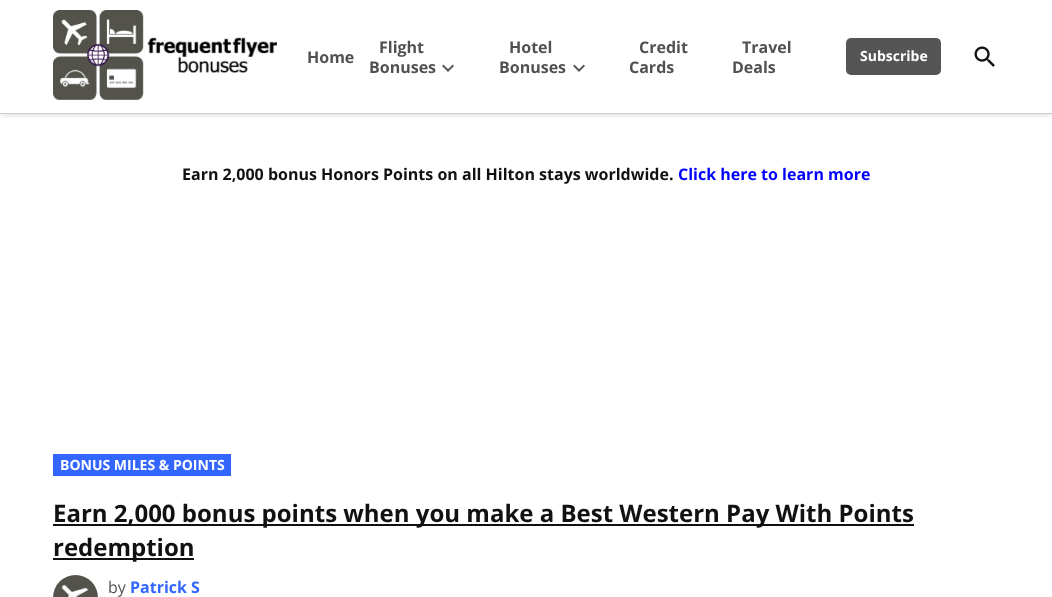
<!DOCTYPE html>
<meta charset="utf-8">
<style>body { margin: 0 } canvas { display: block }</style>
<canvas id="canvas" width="1052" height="597"></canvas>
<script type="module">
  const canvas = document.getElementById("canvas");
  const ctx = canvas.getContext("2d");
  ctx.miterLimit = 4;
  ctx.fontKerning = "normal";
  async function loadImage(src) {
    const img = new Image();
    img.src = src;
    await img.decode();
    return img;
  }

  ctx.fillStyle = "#ffffff";
  ctx.fillRect(0, 0, 1052, 597);
  ctx.save();
  ctx.beginPath();
  ctx.rect(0, 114, 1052, 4);
  ctx.clip();
  ctx.fillStyle = "rgba(0, 0, 0, 0.1)";
  ctx.filter = "blur(2.5px)";
  ctx.beginPath();
  ctx.rect(0, 2, 1052, 114);
  ctx.fill();
  ctx.filter = "none";
  ctx.restore();
  ctx.fillStyle = "#cccccc";
  ctx.fillRect(0, 113, 1052, 1);
  ctx.drawImage(await loadImage("img1.png"), 53, 10, 224, 90);
  ctx.font = "bold 16px Open Sans";
  ctx.fillStyle = "#515151";
  ctx.fillText("Home", 307, 63);
  ctx.fillText("Flight", 379, 53);
  ctx.fillText("Bonuses", 369, 73);
  ctx.drawImage(await loadImage("img2.png"), 442, 64, 12, 8);
  ctx.fillText("Hotel", 509, 53);
  ctx.fillText("Bonuses", 499, 73);
  ctx.drawImage(await loadImage("img2.png"), 573, 64, 12, 8);
  ctx.fillText("Credit", 639, 53);
  ctx.fillText("Cards", 629, 73);
  ctx.fillText("Travel", 742, 53);
  ctx.fillText("Deals", 732, 73);
  ctx.fillStyle = "#555555";
  ctx.beginPath();
  ctx.roundRect(846, 38, 95, 37, 5);
  ctx.fill();
  ctx.font = "bold 14px Open Sans";
  ctx.fillStyle = "#ffffff";
  ctx.fillText("Subscribe", 860, 61);
  ctx.drawImage(await loadImage("img3.png"), 974, 46, 21, 21);
  ctx.font = "bold 16px Open Sans";
  ctx.fillStyle = "#111111";
  ctx.fillText("Earn 2,000 bonus Honors Points on all Hilton stays worldwide.", 182, 180);
  ctx.fillStyle = "#0000ff";
  ctx.fillText("Click here to learn more", 678, 180);
  ctx.fillStyle = "#3366ff";
  ctx.fillRect(53, 454, 178, 22);
  ctx.font = "bold 14px Open Sans";
  ctx.fillStyle = "#ffffff";
  ctx.fillText("BONUS MILES & POINTS", 60, 470);
  ctx.fillStyle = "#111111";
  ctx.fillRect(53, 524, 861, 2);
  ctx.font = "bold 24px Open Sans";
  ctx.fillText("Earn 2,000 bonus points when you make a Best Western Pay With Points", 53, 522);
  ctx.fillRect(53, 558, 141, 2);
  ctx.fillText("redemption", 53, 556);
  ctx.drawImage(await loadImage("img4.png"), 53, 575, 45, 22);
  ctx.font = "16px Open Sans";
  ctx.fillStyle = "#515151";
  ctx.fillText("by", 108, 593);
  ctx.font = "bold 16px Open Sans";
  ctx.fillStyle = "#3366ff";
  ctx.fillText("Patrick S", 130, 593);
</script>
